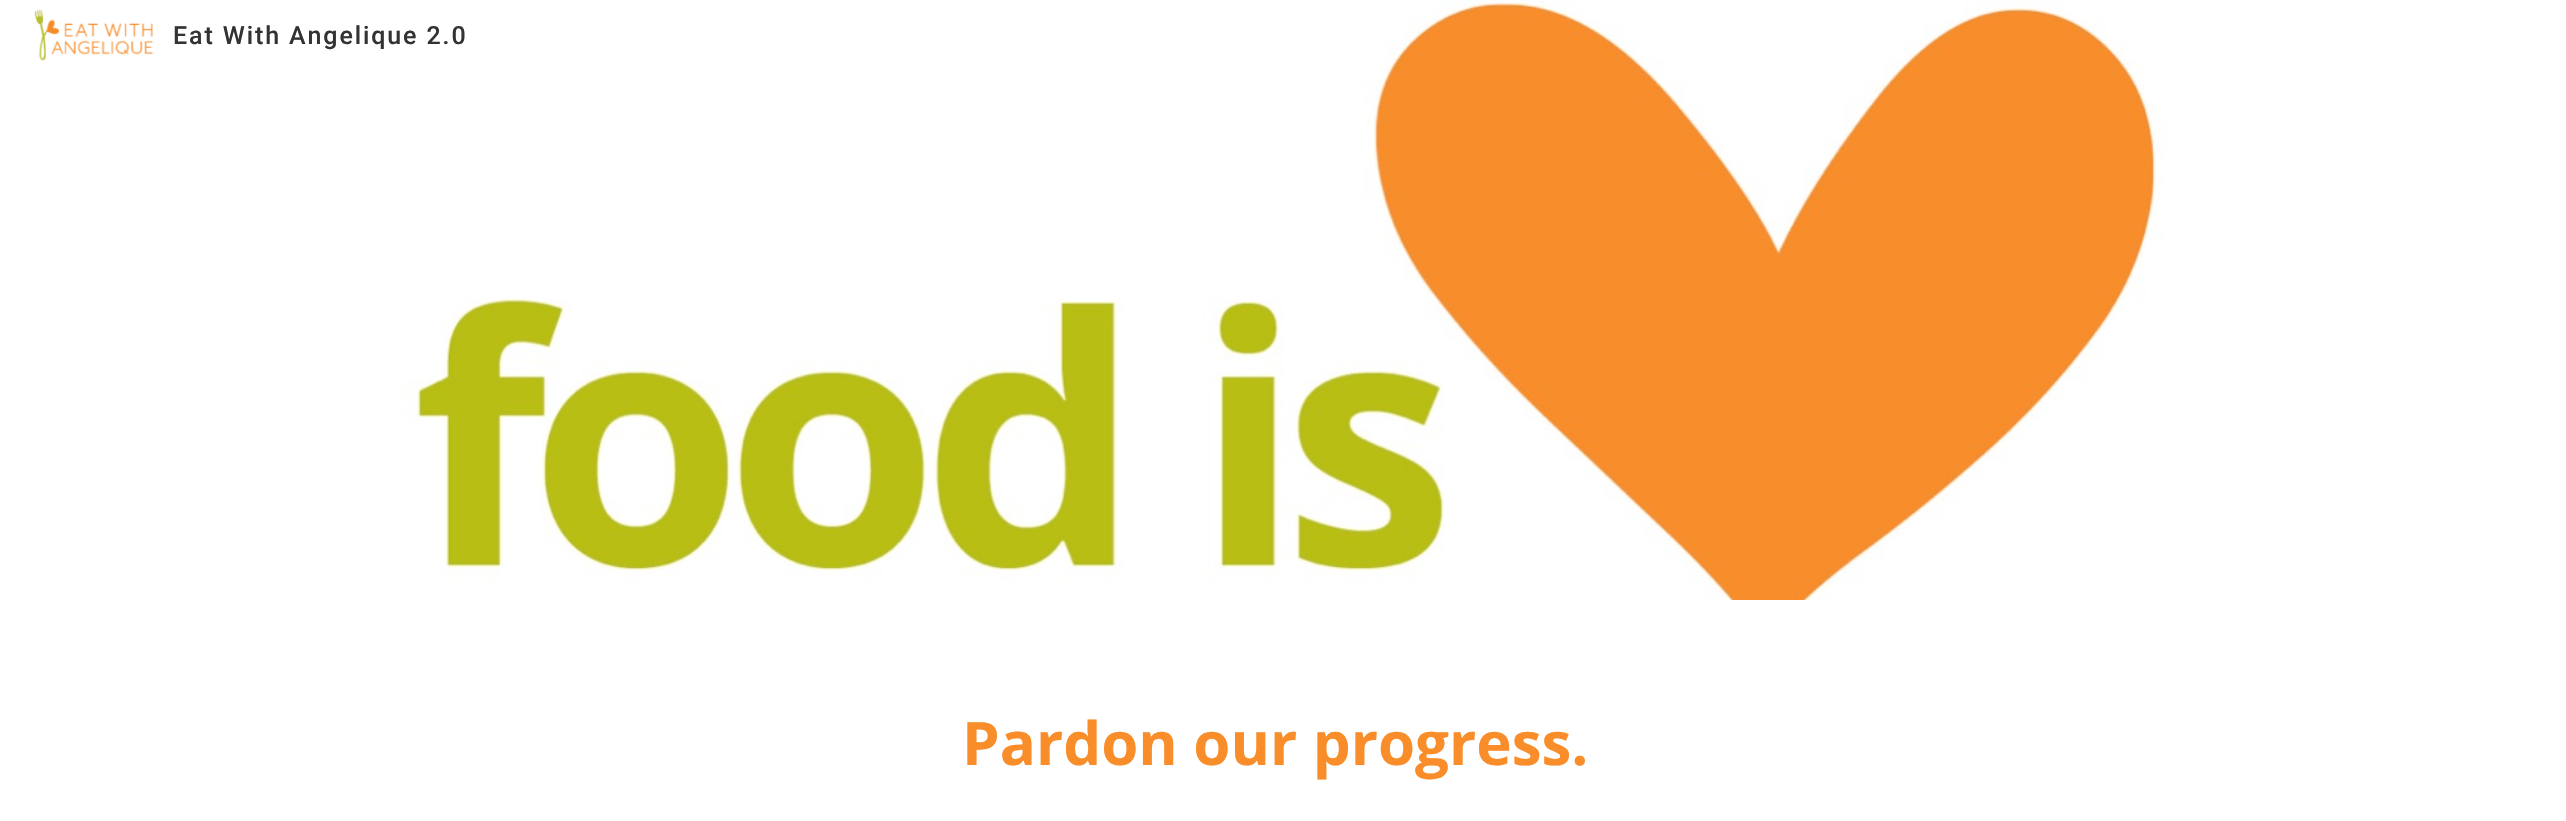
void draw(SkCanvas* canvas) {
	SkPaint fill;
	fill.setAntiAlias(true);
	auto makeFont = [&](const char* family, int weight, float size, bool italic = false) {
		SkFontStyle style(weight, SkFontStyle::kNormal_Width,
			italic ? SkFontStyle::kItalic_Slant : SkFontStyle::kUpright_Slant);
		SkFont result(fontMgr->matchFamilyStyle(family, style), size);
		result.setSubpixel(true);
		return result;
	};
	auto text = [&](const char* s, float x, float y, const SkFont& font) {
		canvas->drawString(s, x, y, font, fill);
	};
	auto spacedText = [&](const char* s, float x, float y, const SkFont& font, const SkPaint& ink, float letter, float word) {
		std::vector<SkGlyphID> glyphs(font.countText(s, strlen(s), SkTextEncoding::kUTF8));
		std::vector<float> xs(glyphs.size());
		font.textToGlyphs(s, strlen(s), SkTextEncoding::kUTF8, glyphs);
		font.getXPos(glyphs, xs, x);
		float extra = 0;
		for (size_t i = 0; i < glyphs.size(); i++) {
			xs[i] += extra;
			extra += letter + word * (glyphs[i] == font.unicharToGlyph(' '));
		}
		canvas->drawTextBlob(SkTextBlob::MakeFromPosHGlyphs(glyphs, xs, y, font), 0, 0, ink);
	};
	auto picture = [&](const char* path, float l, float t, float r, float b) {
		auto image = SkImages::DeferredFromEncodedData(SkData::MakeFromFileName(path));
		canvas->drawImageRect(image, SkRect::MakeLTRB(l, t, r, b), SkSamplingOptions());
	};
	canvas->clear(0xFFFFFFFF);
	picture("image0.png", 34, 9, 154, 61);
	picture("image1.png", 401, 0, 2165, 600);
	auto font1 = makeFont("Roboto", 500, 25);
	fill.setColor(0xFF333333);
	spacedText("Eat With Angelique 2.0", 173, 44, font1, fill, 1.9f, 0);
	auto font2 = makeFont("Open Sans", 700, 60);
	fill.setColor(0xFFF88D2A);
	text("Pardon our progress.", 962, 765, font2);
}
